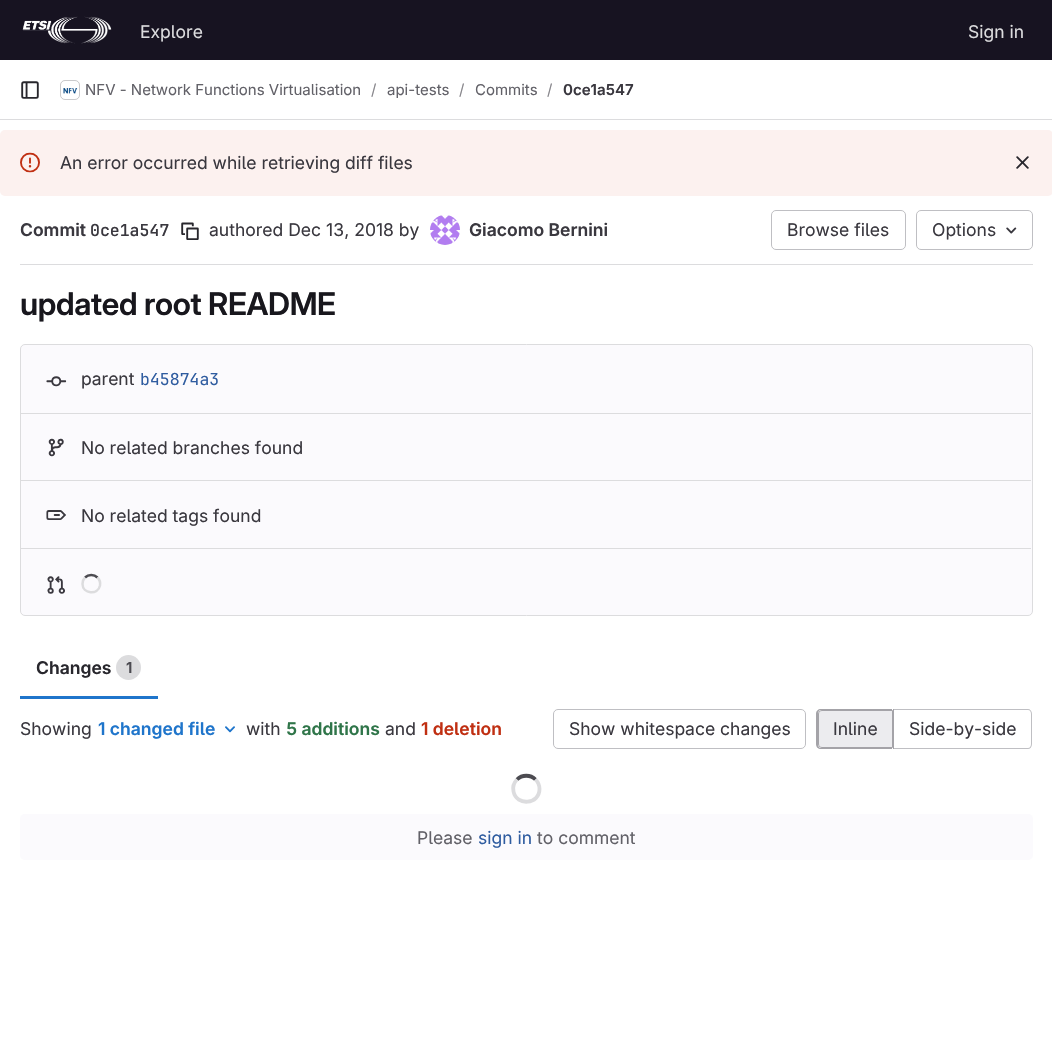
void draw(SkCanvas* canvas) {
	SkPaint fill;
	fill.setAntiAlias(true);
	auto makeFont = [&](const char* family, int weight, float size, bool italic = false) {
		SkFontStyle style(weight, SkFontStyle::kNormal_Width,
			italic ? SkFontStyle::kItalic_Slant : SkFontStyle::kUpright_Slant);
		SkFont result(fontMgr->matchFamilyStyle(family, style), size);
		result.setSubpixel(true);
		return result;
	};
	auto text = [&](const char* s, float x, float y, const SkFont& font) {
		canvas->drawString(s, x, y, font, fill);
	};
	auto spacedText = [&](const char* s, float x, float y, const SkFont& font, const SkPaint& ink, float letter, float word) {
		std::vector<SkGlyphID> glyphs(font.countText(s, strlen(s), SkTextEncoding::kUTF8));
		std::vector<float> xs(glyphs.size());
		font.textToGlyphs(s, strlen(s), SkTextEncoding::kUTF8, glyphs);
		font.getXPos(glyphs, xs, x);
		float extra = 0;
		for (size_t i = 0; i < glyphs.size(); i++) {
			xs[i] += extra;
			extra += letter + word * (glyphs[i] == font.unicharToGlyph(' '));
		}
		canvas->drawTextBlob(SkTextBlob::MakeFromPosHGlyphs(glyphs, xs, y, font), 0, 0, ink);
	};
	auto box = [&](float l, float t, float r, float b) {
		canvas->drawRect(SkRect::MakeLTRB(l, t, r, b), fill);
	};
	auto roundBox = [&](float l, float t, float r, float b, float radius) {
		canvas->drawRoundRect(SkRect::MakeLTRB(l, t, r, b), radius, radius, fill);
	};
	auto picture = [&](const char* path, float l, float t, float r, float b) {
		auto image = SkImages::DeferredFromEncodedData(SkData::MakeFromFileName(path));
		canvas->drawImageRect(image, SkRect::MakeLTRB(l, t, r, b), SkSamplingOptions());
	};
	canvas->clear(0xFFFFFFFF);
	fill.setColor(0xFF171321);
	box(0, 0, 1052, 60);
	picture("image0.png", 22, 16, 112, 44);
	fill.setColor(0xFFDCDCDE);
	box(0, 119, 1052, 120);
	picture("image1.png", 21, 81, 39, 99);
	fill.setStyle(SkPaint::kStroke_Style);
	fill.setStrokeWidth(1);
	canvas->drawRoundRect(SkRect::MakeLTRB(60.5f, 80.5f, 79.5f, 99.5f), 4.5f, 4.5f, fill);
	picture("image2.png", 61, 88, 79, 97);
	fill.setColor(0x14050506);
	canvas->drawRoundRect(SkRect::MakeLTRB(60.5f, 80.5f, 79.5f, 99.5f), 4.5f, 4.5f, fill);
	fill.setStyle(SkPaint::kFill_Style);
	fill.setColor(0xFFFCF1EF);
	roundBox(0, 130, 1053, 196, 5);
	picture("image3.png", 20, 152, 40, 173);
	picture("image4.png", 1016, 156, 1029, 169);
	picture("image5.png", 181, 222, 199, 240);
	fill.setStyle(SkPaint::kStroke_Style);
	fill.setColor(0xFFE8E7E9);
	canvas->drawCircle(445, 230, 14.5f, fill);
	picture("image6.png", 430, 215, 460, 245);
	fill.setColor(0xFFBFBFC3);
	canvas->drawRoundRect(SkRect::MakeLTRB(771.5f, 210.5f, 905.5f, 249.5f), 4.5f, 4.5f, fill);
	canvas->drawRoundRect(SkRect::MakeLTRB(916.5f, 210.5f, 1032.5f, 249.5f), 4.5f, 4.5f, fill);
	picture("image7.png", 1006, 227, 1017, 234);
	fill.setStyle(SkPaint::kFill_Style);
	fill.setColor(0xFFDCDCDE);
	box(20, 264, 1033, 265);
	fill.setColor(0xFFFBFAFD);
	canvas->drawRoundRect(SkRect::MakeLTRB(20.5f, 344.5f, 1032.5f, 615.5f), 4.5f, 4.5f, fill);
	fill.setStyle(SkPaint::kStroke_Style);
	fill.setColor(0xFFDCDCDE);
	canvas->drawRoundRect(SkRect::MakeLTRB(20.5f, 344.5f, 1032.5f, 615.5f), 4.5f, 4.5f, fill);
	picture("image8.png", 46, 376, 67, 387);
	fill.setStyle(SkPaint::kFill_Style);
	box(21, 413, 1031, 414);
	picture("image9.png", 48, 438, 64, 457);
	box(21, 480, 1031, 481);
	picture("image10.png", 46, 510, 66, 520);
	box(21, 548, 1031, 549);
	picture("image11.png", 47, 576, 65, 594);
	fill.setStyle(SkPaint::kStroke_Style);
	fill.setStrokeWidth(2.5f);
	fill.setColor(0xFF4C4B51);
	canvas->drawPath(SkPathBuilder().moveTo(85, 577.5f).cubicTo(88.5f, 574, 94, 574, 97.5f, 577.5f).detach(), fill);
	fill.setColor(0xFFDCDCDE);
	canvas->drawPath(SkPathBuilder().moveTo(97.5f, 577.5f).cubicTo(99.5f, 579.5f, 100.5f, 582.5f, 100, 585.5f).cubicTo(98, 595.5f, 82.5f, 594, 82.5f, 584).cubicTo(82.5f, 581.5f, 83.5f, 579, 85, 577.5f).detach(), fill);
	fill.setStyle(SkPaint::kFill_Style);
	canvas->drawCircle(128.5f, 667.5f, 12.5f, fill);
	fill.setColor(0xFF1F75CB);
	box(20, 696, 158, 699);
	picture("image12.png", 225, 726, 235, 733);
	fill.setStyle(SkPaint::kStroke_Style);
	fill.setStrokeWidth(1);
	fill.setColor(0xFFBFBFC3);
	canvas->drawRoundRect(SkRect::MakeLTRB(553.5f, 709.5f, 805.5f, 748.5f), 4.5f, 4.5f, fill);
	fill.setStyle(SkPaint::kFill_Style);
	fill.setColor(0xFFECECEF);
	canvas->drawPath(SkPathBuilder().moveTo(822, 710.5f).lineTo(892.5f, 710.5f).lineTo(892.5f, 747.5f).lineTo(822, 747.5f).cubicTo(820, 747.5f, 818.5f, 746, 818.5f, 744).lineTo(818.5f, 714).cubicTo(818.5f, 712, 820, 710.5f, 822, 710.5f).close().detach(), fill);
	fill.setStyle(SkPaint::kStroke_Style);
	fill.setColor(0xFFA4A3A8);
	canvas->drawPath(SkPathBuilder().moveTo(822, 710.5f).lineTo(892.5f, 710.5f).lineTo(892.5f, 747.5f).lineTo(822, 747.5f).cubicTo(820, 747.5f, 818.5f, 746, 818.5f, 744).lineTo(818.5f, 714).cubicTo(818.5f, 712, 820, 710.5f, 822, 710.5f).close().detach(), fill);
	fill.setStyle(SkPaint::kFill_Style);
	canvas->drawPath(SkPathBuilder(SkPathFillType::kEvenOdd).moveTo(821, 709).lineTo(892, 709).lineTo(892, 749).lineTo(821, 749).cubicTo(818, 749, 816, 747, 816, 744).lineTo(816, 714).cubicTo(816, 711, 818, 709, 821, 709).close().moveTo(821, 710).lineTo(892, 710).lineTo(892, 748).lineTo(821, 748).cubicTo(819, 748, 818, 746, 818, 744).lineTo(818, 714).cubicTo(818, 712, 819, 710, 821, 710).close().detach(), fill);
	fill.setColor(0xFFBFBFC3);
	canvas->drawPath(SkPathBuilder(SkPathFillType::kEvenOdd).moveTo(894, 709).lineTo(1028, 709).cubicTo(1030, 709, 1032, 711, 1032, 714).lineTo(1032, 744).cubicTo(1032, 747, 1030, 749, 1028, 749).lineTo(894, 749).close().moveTo(894, 710).lineTo(1028, 710).cubicTo(1030, 710, 1031, 712, 1031, 714).lineTo(1031, 744).cubicTo(1031, 746, 1030, 748, 1028, 748).lineTo(894, 748).close().detach(), fill);
	fill.setColor(0xFFA4A3A8);
	box(893, 709, 894, 749);
	fill.setStyle(SkPaint::kStroke_Style);
	fill.setStrokeWidth(3.8f);
	fill.setColor(0xFF4C4B51);
	canvas->drawPath(SkPathBuilder().moveTo(517, 779.5f).cubicTo(522, 774.5f, 530.5f, 774.5f, 535.5f, 779.5f).detach(), fill);
	fill.setColor(0xFFDCDCDE);
	canvas->drawPath(SkPathBuilder().moveTo(535.5f, 779.5f).cubicTo(538, 782, 539.5f, 785.5f, 539.5f, 789).cubicTo(539.5f, 804.5f, 516.5f, 806.5f, 513.5f, 791.5f).cubicTo(512.5f, 787, 514, 782.5f, 517, 779.5f).detach(), fill);
	fill.setStyle(SkPaint::kFill_Style);
	fill.setColor(0xFFFBFAFD);
	roundBox(20, 814, 1033, 860, 5);
	auto font1 = makeFont("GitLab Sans", 400, 17.5f);
	fill.setColor(0xFFDCDCDE);
	text("Explore", 140, 38, font1);
	text("Sign in", 968, 38, font1);
	auto font2 = makeFont("GitLab Sans", 400, 15);
	fill.setColor(0xFF626168);
	text("NFV - Network Functions Virtualisation", 85, 95, font2);
	fill.setColor(0xFF89888D);
	text("/", 371, 95, font2);
	fill.setColor(0xFF626168);
	text("api-tests", 387, 95, font2);
	fill.setColor(0xFF89888D);
	text("/", 459, 95, font2);
	fill.setColor(0xFF626168);
	text("Commits", 475, 95, font2);
	fill.setColor(0xFF89888D);
	text("/", 547, 95, font2);
	auto font3 = makeFont("GitLab Sans", 600, 15);
	fill.setColor(0xFF3A383F);
	text("0ce1a547", 563, 95, font3);
	text("An error occurred while retrieving diff files", 60, 169, font1);
	auto font4 = makeFont("GitLab Sans", 600, 17.5f);
	text("Commit", 20, 236, font4);
	auto font5 = makeFont("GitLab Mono", 600, 16.5f);
	text("0ce1a547", 90, 236, font5);
	text("authored Dec 13, 2018 by", 209, 236, font1);
	text("Giacomo Bernini", 469, 236, font4);
	text("Browse files", 787, 236, font1);
	text("Options", 932, 236, font1);
	auto font6 = makeFont("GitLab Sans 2", 600, 31.25f);
	fill.setColor(0xFF18171D);
	spacedText("updated root README", 20, 315, font6, fill, -0.3f, 0);
	fill.setColor(0xFF3A383F);
	text("parent", 81, 385, font1);
	auto font7 = makeFont("GitLab Mono", 400, 16.5f);
	fill.setColor(0xFF2F5CA0);
	text("b45874a3", 140, 385, font7);
	fill.setColor(0xFF3A383F);
	text("No related branches found", 81, 454, font1);
	text("No related tags found", 81, 522, font1);
	fill.setColor(0xFF28272D);
	text("Changes", 36, 674, font4);
	fill.setColor(0xFF4C4B51);
	text("1", 126, 673, font3);
	fill.setColor(0xFF3A383F);
	text("Showing", 20, 735, font1);
	fill.setColor(0xFF1F75CB);
	text("1 changed file", 98, 735, font4);
	fill.setColor(0xFF3A383F);
	text("with", 246, 735, font1);
	fill.setColor(0xFF2F7549);
	text("5 additions", 286, 735, font4);
	fill.setColor(0xFF3A383F);
	text("and", 385, 735, font1);
	fill.setColor(0xFFC02F12);
	text("1 deletion", 421, 735, font4);
	fill.setColor(0xFF3A383F);
	text("Show whitespace changes", 569, 735, font1);
	text("Inline", 833, 735, font1);
	text("Side-by-side", 909, 735, font1);
	fill.setColor(0xFF626168);
	text("Please", 417, 844, font1);
	fill.setColor(0xFF2F5CA0);
	text("sign in", 478, 844, font1);
	fill.setColor(0xFF626168);
	text("to comment", 537, 844, font1);
}
